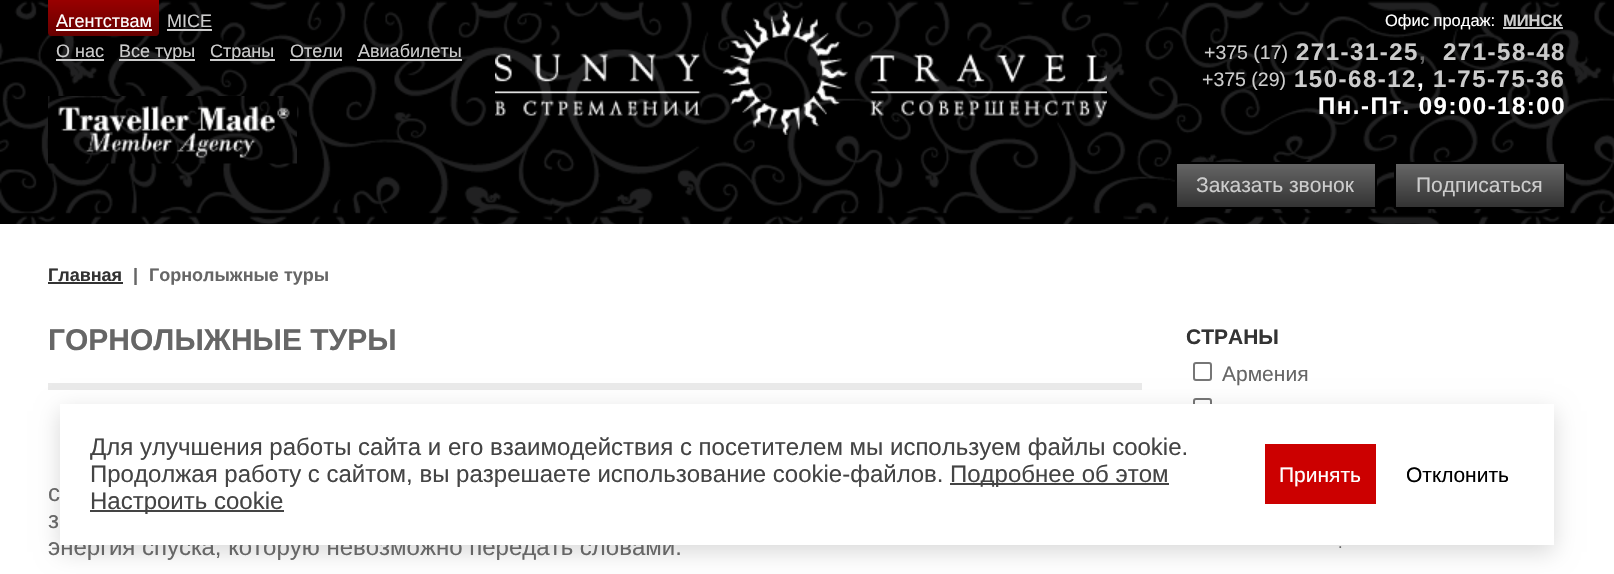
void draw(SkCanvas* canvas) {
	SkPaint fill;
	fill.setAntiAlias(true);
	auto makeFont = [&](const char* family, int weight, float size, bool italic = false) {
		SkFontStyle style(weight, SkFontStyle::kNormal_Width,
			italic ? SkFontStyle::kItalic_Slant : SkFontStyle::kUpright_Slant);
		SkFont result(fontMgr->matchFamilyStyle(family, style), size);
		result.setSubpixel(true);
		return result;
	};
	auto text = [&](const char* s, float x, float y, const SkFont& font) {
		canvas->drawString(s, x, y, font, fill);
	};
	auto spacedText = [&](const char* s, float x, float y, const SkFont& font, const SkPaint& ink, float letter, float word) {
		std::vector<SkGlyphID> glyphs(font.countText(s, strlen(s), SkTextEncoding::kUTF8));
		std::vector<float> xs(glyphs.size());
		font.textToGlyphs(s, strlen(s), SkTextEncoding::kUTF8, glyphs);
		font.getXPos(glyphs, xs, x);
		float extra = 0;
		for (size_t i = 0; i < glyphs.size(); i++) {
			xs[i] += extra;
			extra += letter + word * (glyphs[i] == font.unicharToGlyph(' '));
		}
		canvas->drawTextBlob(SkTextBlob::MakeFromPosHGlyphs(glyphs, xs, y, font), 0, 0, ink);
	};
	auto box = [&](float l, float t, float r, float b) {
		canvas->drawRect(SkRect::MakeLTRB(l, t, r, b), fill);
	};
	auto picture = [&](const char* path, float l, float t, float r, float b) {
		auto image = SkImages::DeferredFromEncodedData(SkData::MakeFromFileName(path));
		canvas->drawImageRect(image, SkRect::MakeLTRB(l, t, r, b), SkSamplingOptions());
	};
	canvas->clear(0xFF000000);
	picture("image0.png", 0, 1, 1614, 224);
	picture("image1.png", 495, 10, 1107, 135);
	{
		const SkColor colors[] = {0xFF990000, 0xFF660000};
		const float stops[] = {0, 1};
		const SkPoint ends[] = {{104, 0}, {104, 36}};
		fill.setShader(SkGradientShader::MakeLinear(ends, colors, stops, 2, SkTileMode::kClamp));
		fill.setAlpha(255);
	}
	canvas->drawPath(SkPathBuilder().moveTo(48, 0).lineTo(159, 0).lineTo(159, 33).cubicTo(159, 34.5f, 157.5f, 36, 156, 36).lineTo(51, 36).cubicTo(49.5f, 36, 48, 34.5f, 48, 33).close().detach(), fill);
	fill.setShader(nullptr);
	fill.setColor(0xFFFFFFFF);
	box(56, 29, 152, 31);
	fill.setColor(0xFFCCCCCC);
	box(167, 29, 212, 31);
	box(56, 59, 104, 61);
	box(119, 59, 195, 61);
	box(210, 59, 275, 61);
	box(290, 59, 342, 61);
	box(357, 59, 462, 61);
	picture("image2.png", 48, 96, 297, 164);
	box(1503, 27, 1563, 29);
	{
		const SkColor colors[] = {0xFF666666, 0xFF333333};
		const float stops[] = {0, 1};
		const SkPoint ends[] = {{1276, 163}, {1276, 207}};
		fill.setShader(SkGradientShader::MakeLinear(ends, colors, stops, 2, SkTileMode::kClamp));
		fill.setAlpha(255);
	}
	box(1177, 164, 1375, 207);
	fill.setStyle(SkPaint::kStroke_Style);
	fill.setStrokeWidth(2);
	fill.setShader(nullptr);
	fill.setColor(0xFF000000);
	canvas->drawRect(SkRect::MakeLTRB(1176, 163, 1376, 208), fill);
	fill.setStyle(SkPaint::kFill_Style);
	{
		const SkColor colors[] = {0xFF666666, 0xFF333333};
		const float stops[] = {0, 1};
		const SkPoint ends[] = {{1480, 164}, {1480, 207}};
		fill.setShader(SkGradientShader::MakeLinear(ends, colors, stops, 2, SkTileMode::kClamp));
		fill.setAlpha(255);
	}
	box(1396, 164, 1564, 207);
	fill.setStyle(SkPaint::kStroke_Style);
	fill.setShader(nullptr);
	fill.setColor(0xFF000000);
	canvas->drawRect(SkRect::MakeLTRB(1395, 163, 1565, 208), fill);
	fill.setStyle(SkPaint::kFill_Style);
	fill.setColor(0xFFFFFFFF);
	box(0, 224, 1614, 574);
	fill.setColor(0xFF333333);
	box(48, 282, 123, 284);
	fill.setColor(0xFFEAEAEA);
	box(48, 383, 1142, 390);
	fill.setStyle(SkPaint::kStroke_Style);
	fill.setColor(0xFF767676);
	canvas->drawRoundRect(SkRect::MakeLTRB(1194, 363, 1211, 380), 2, 2, fill);
	canvas->drawRoundRect(SkRect::MakeLTRB(1194, 399, 1211, 416), 2, 2, fill);
	fill.setStyle(SkPaint::kFill_Style);
	fill.setColor(0x26000000);
	fill.setMaskFilter(SkMaskFilter::MakeBlur(kNormal_SkBlurStyle, 11));
	canvas->drawRect(SkRect::MakeLTRB(60, 411, 1554, 552), fill);
	fill.setMaskFilter(nullptr);
	auto font1 = makeFont("Liberation Sans", 400, 18);
	fill.setColor(0xFFFFFFFF);
	text("Агентствам", 56, 27, font1);
	fill.setColor(0xFFCCCCCC);
	text("MICE", 167, 27, font1);
	text("О нас", 56, 57, font1);
	text("Все туры", 119, 57, font1);
	text("Страны", 210, 57, font1);
	text("Отели", 290, 57, font1);
	text("Авиабилеты", 358, 57, font1);
	auto font2 = makeFont("Liberation Sans", 400, 16.5f);
	fill.setColor(0xFFFFFFFF);
	text("Офис продаж:", 1385, 26, font2);
	auto font3 = makeFont("Liberation Sans", 700, 16.5f);
	fill.setColor(0xFFCCCCCC);
	text("МИНСК", 1503, 26, font3);
	auto font4 = makeFont("Liberation Sans", 400, 19.5f);
	text("+375 (17)", 1204, 59, font4);
	auto font5 = makeFont("Liberation Sans", 700, 24);
	spacedText("271-31-25", 1296, 60, font5, fill, 1.5f, 0);
	fill.setColor(0xFF666666);
	spacedText(",", 1419, 60, font5, fill, 1.5f, 0);
	fill.setColor(0xFFCCCCCC);
	spacedText("271-58-48", 1443, 60, font5, fill, 1.5f, 0);
	text("+375 (29)", 1202, 86, font4);
	spacedText("150-68-12", 1294, 87, font5, fill, 1.5f, 0);
	fill.setColor(0xFFFFFFFF);
	spacedText(",", 1417, 87, font5, fill, 1.5f, 0);
	fill.setColor(0xFFCCCCCC);
	spacedText("1-75-75-36", 1433, 87, font5, fill, 1.5f, 0);
	fill.setColor(0xFFFFFFFF);
	spacedText("Пн.-Пт. 09:00-18:00", 1318, 114, font5, fill, 1.5f, 0);
	auto font6 = makeFont("Liberation Sans", 400, 21);
	fill.setColor(0xFFCCCCCC);
	text("Заказать звонок", 1196, 192, font6);
	text("Подписаться", 1416, 192, font6);
	auto font7 = makeFont("Liberation Sans", 700, 18);
	fill.setColor(0xFF333333);
	text("Главная", 48, 281, font7);
	fill.setColor(0xFF666666);
	text("|", 133, 281, font7);
	text("Горнолыжные туры", 149, 281, font7);
	auto font8 = makeFont("Liberation Sans", 700, 30);
	text("ГОРНОЛЫЖНЫЕ ТУРЫ", 48, 350, font8);
	auto font9 = makeFont("Liberation Sans", 400, 24);
	text("с", 48, 501, font9);
	text("з", 48, 528, font9);
	text("энергия спуска, которую невозможно передать словами.", 48, 555, font9);
	auto font10 = makeFont("Liberation Sans", 700, 21);
	fill.setColor(0xFF333333);
	text("СТРАНЫ", 1186, 344, font10);
	fill.setColor(0xFF666666);
	text("Армения", 1222, 381, font6);
	text(".", 1338, 548, font2);
	fill.setColor(0xFFFFFFFF);
	box(60, 404, 1554, 545);
	fill.setColor(0xFF444444);
	text("Для улучшения работы сайта и его взаимодействия с посетителем мы используем файлы cookie.", 90, 455, font9);
	text("Продолжая работу с сайтом, вы разрешаете использование cookie-файлов.", 90, 482, font9);
	box(950, 483, 1169, 485);
	text("Подробнее об этом", 950, 482, font9);
	box(90, 510, 284, 512);
	text("Настроить сookie", 90, 509, font9);
	fill.setColor(0xFFCC0000);
	box(1265, 444, 1376, 504);
	fill.setColor(0xFFFFFFFF);
	text("Принять", 1279, 482, font6);
	fill.setColor(0xFF000000);
	text("Отклонить", 1406, 482, font6);
}
